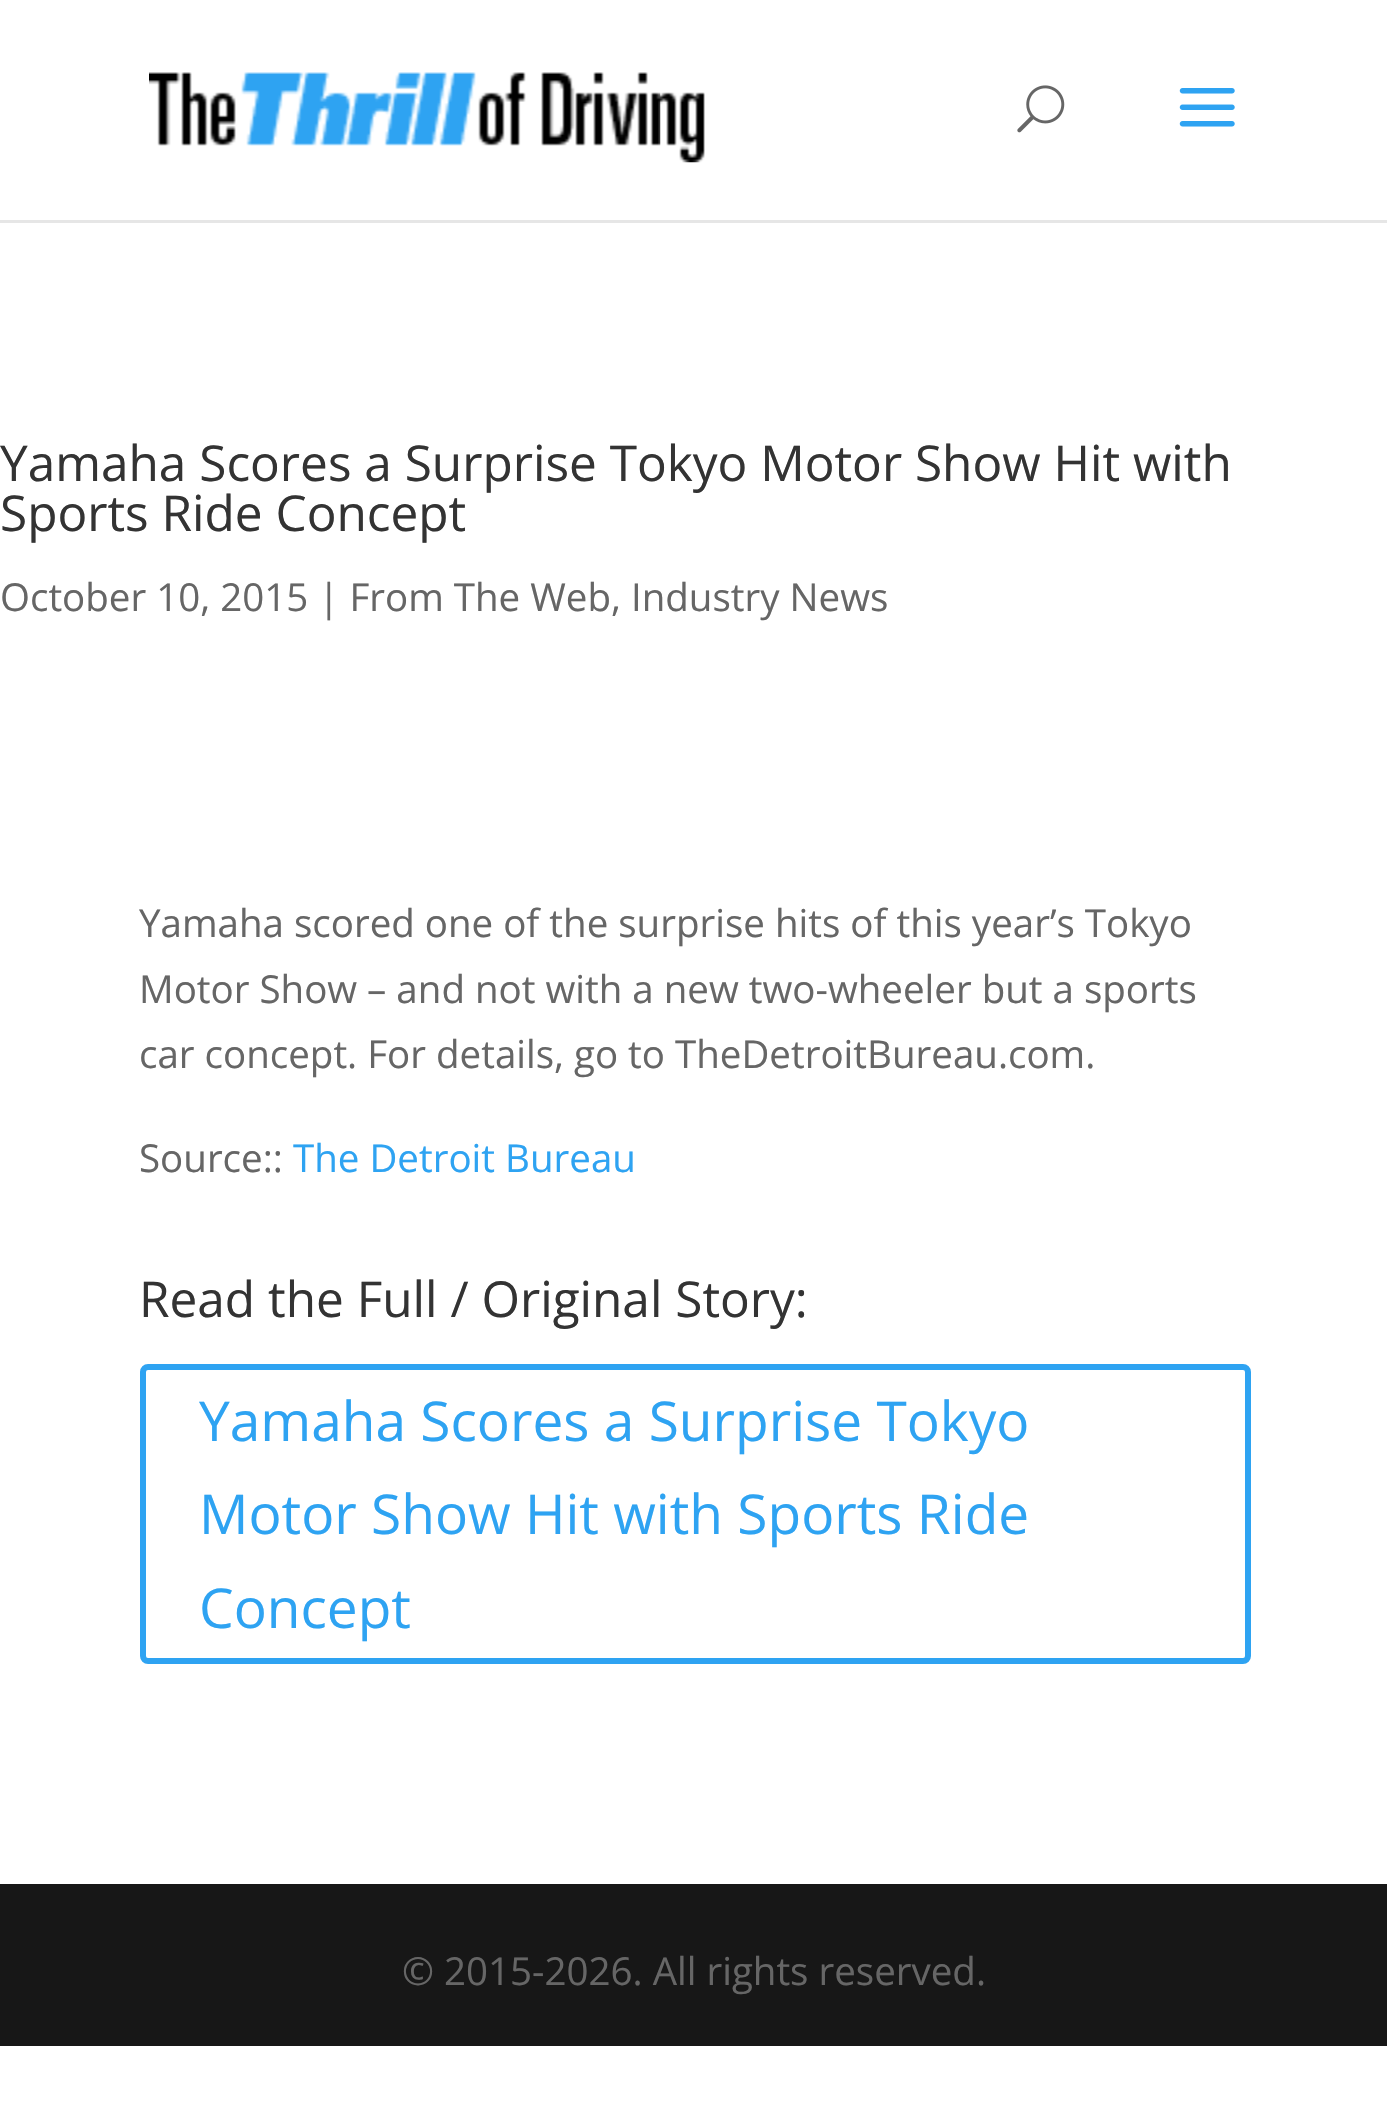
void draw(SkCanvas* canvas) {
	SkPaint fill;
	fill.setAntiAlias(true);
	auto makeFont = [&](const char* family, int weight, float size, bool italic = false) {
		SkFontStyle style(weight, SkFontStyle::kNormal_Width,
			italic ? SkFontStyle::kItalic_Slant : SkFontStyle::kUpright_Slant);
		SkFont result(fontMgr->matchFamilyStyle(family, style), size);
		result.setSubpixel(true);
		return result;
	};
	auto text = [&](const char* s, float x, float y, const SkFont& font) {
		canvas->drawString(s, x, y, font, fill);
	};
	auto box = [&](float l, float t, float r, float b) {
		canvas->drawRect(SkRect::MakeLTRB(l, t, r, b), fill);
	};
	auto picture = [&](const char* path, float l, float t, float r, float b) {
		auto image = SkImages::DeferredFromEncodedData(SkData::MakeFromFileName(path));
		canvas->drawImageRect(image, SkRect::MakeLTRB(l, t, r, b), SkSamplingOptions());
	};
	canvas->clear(0xFFFFFFFF);
	fill.setColor(0xFFE6E6E6);
	canvas->drawPath(SkPathBuilder().moveTo(0, 220).lineTo(0, 223).lineTo(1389, 223).lineTo(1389, 3).lineTo(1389, 220).close().detach(), fill);
	picture("image0.png", 149, 72, 705, 163);
	picture("image1.png", 1017, 85, 1065, 133);
	picture("image2.png", 1179, 88, 1235, 127);
	fill.setStyle(SkPaint::kStroke_Style);
	fill.setStrokeWidth(6);
	fill.setColor(0xFF2EA3F2);
	canvas->drawRoundRect(SkRect::MakeLTRB(143, 1367, 1248, 1661), 5, 5, fill);
	fill.setStyle(SkPaint::kFill_Style);
	fill.setColor(0xFF171717);
	box(0, 1884, 1387, 2046);
	auto font1 = makeFont("Open Sans", 400, 49.5f);
	fill.setColor(0xFF333333);
	text("Yamaha Scores a Surprise Tokyo Motor Show Hit with", 0, 481, font1);
	text("Sports Ride Concept", 0, 531, font1);
	auto font2 = makeFont("Open Sans", 400, 38.5f);
	fill.setColor(0xFF666666);
	text("October 10, 2015 | From The Web, Industry News", 0, 611, font2);
	text("Yamaha scored one of the surprise hits of this year’s Tokyo", 139, 937, font2);
	text("Motor Show – and not with a new two-wheeler but a sports", 139, 1003, font2);
	text("car concept. For details, go to TheDetroitBureau.com.", 139, 1068, font2);
	text("Source::", 139, 1172, font2);
	fill.setColor(0xFF2EA3F2);
	text("The Detroit Bureau", 293, 1172, font2);
	fill.setColor(0xFF333333);
	text("Read the Full / Original Story:", 139, 1317, font1);
	auto font3 = makeFont("Open Sans", 400, 55);
	fill.setColor(0xFF2EA3F2);
	text("Yamaha Scores a Surprise Tokyo", 199, 1441, font3);
	text("Motor Show Hit with Sports Ride", 199, 1534, font3);
	text("Concept", 199, 1628, font3);
	fill.setColor(0xFF666666);
	text("© 2015-2026. All rights reserved.", 402, 1985, font2);
}
